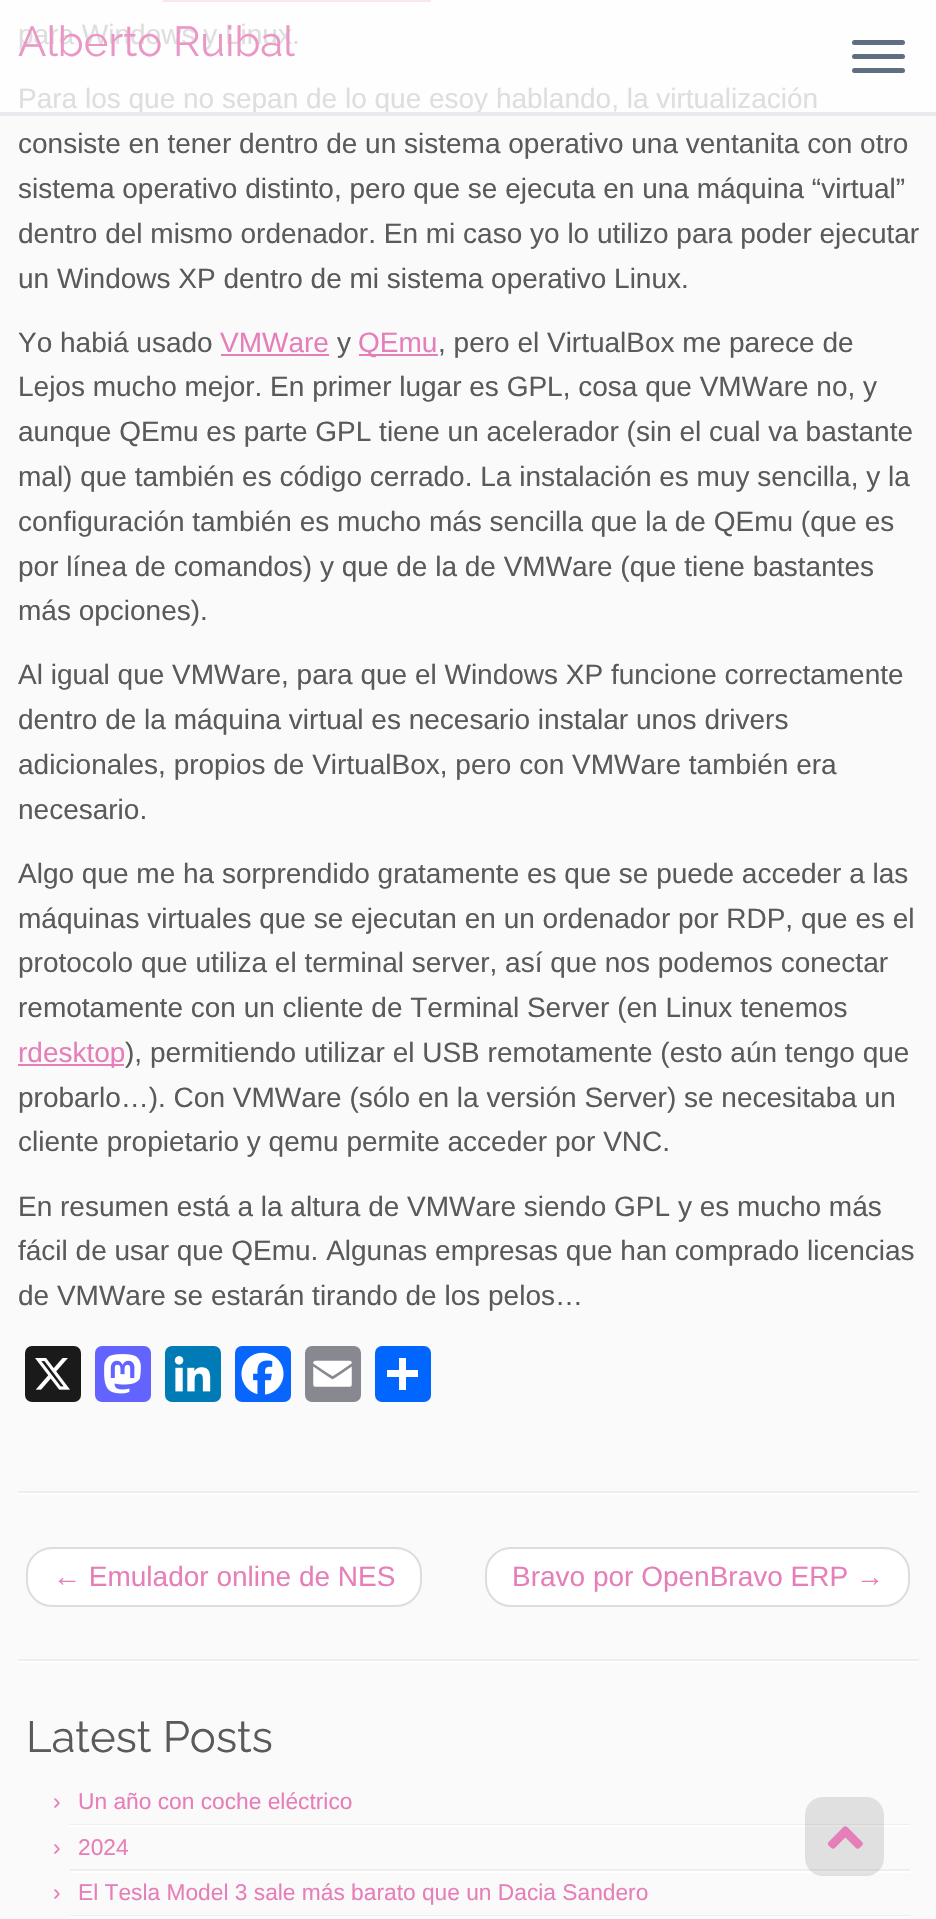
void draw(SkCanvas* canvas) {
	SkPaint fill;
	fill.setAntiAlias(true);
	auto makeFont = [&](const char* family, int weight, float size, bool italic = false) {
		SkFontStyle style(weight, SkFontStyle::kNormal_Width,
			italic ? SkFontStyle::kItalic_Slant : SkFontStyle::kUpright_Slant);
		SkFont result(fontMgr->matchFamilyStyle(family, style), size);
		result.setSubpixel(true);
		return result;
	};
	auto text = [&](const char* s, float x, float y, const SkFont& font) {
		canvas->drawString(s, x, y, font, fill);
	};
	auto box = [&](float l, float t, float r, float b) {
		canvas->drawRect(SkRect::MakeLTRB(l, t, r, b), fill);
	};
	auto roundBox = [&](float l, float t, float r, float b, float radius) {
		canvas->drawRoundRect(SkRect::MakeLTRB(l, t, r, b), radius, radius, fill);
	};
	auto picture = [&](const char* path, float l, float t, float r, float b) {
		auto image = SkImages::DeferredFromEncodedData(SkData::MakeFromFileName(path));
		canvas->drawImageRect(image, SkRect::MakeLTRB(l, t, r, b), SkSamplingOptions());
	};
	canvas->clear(0xFFFAFAFA);
	fill.setColor(0xFFFEFEFE);
	box(0, 0, 936, 112);
	fill.setColor(0xFFFAE5F1);
	box(163, 0, 431, 2);
	fill.setColor(0xFFE67FB9);
	box(221, 354, 329, 356);
	box(359, 354, 438, 356);
	box(18, 1064, 124, 1066);
	fill.setColor(0xFF1A1A1A);
	roundBox(25, 1346, 81, 1402, 7);
	picture("image0.png", 35, 1358, 70, 1390);
	fill.setColor(0xFF6364FF);
	roundBox(95, 1346, 151, 1402, 7);
	picture("image1.png", 104, 1354, 141, 1394);
	fill.setColor(0xFF007BB5);
	roundBox(165, 1346, 221, 1402, 7);
	picture("image2.png", 174, 1356, 211, 1392);
	fill.setColor(0xFF0866FF);
	roundBox(235, 1346, 291, 1402, 7);
	picture("image3.png", 241, 1352, 284, 1395);
	fill.setColor(0xFF888990);
	roundBox(305, 1346, 361, 1402, 7);
	picture("image4.png", 313, 1360, 352, 1387);
	fill.setColor(0xFF0166FF);
	roundBox(375, 1346, 431, 1402, 7);
	fill.setColor(0xFFFFFFFF);
	box(399, 1358, 406, 1390);
	box(387, 1370, 418, 1377);
	fill.setColor(0xFFEEEEEE);
	box(18, 1491, 919, 1493);
	fill.setColor(0xFFFFFFFF);
	box(18, 1493, 919, 1495);
	canvas->drawRoundRect(SkRect::MakeLTRB(27, 1548, 421, 1606), 25, 25, fill);
	fill.setStyle(SkPaint::kStroke_Style);
	fill.setStrokeWidth(2);
	fill.setColor(0xFFDDDDDD);
	canvas->drawRoundRect(SkRect::MakeLTRB(27, 1548, 421, 1606), 25, 25, fill);
	fill.setStyle(SkPaint::kFill_Style);
	fill.setColor(0xFFFFFFFF);
	canvas->drawRoundRect(SkRect::MakeLTRB(486, 1548, 909, 1606), 25, 25, fill);
	fill.setStyle(SkPaint::kStroke_Style);
	fill.setColor(0xFFDDDDDD);
	canvas->drawRoundRect(SkRect::MakeLTRB(486, 1548, 909, 1606), 25, 25, fill);
	fill.setStyle(SkPaint::kFill_Style);
	fill.setColor(0xFFEEEEEE);
	box(18, 1659, 919, 1661);
	fill.setColor(0xFFFFFFFF);
	box(18, 1661, 919, 1663);
	fill.setColor(0xFFEEEEEE);
	box(70, 1824, 910, 1825);
	fill.setColor(0xFFFFFFFF);
	box(70, 1825, 910, 1827);
	fill.setColor(0xFFEEEEEE);
	box(70, 1869, 910, 1871);
	fill.setColor(0xFFFFFFFF);
	box(70, 1871, 910, 1873);
	fill.setColor(0xFFEEEEEE);
	box(70, 1915, 910, 1916);
	fill.setColor(0xFFFFFFFF);
	box(70, 1916, 910, 1918);
	fill.setColor(0xFF5F6F81);
	roundBox(852, 40, 905, 45, 2.5f);
	roundBox(852, 54, 905, 59, 2.5f);
	roundBox(852, 68, 905, 73, 2.5f);
	fill.setColor(0x33777777);
	roundBox(805, 1797, 884, 1876, 18);
	picture("image5.png", 827, 1826, 863, 1849);
	auto font1 = makeFont("Liberation Sans", 400, 28);
	fill.setColor(0xFFDEDEDE);
	text("para Windows y Linux.", 18, 44, font1);
	text("Para los que no sepan de lo que esoy hablando, la virtualización", 18, 108, font1);
	fill.setColor(0xFF5A5A5A);
	text("consiste en tener dentro de un sistema operativo una ventanita con otro", 18, 153, font1);
	text("sistema operativo distinto, pero que se ejecuta en una máquina “virtual”", 18, 198, font1);
	text("dentro del mismo ordenador. En mi caso yo lo utilizo para poder ejecutar", 18, 243, font1);
	text("un Windows XP dentro de mi sistema operativo Linux.", 18, 288, font1);
	text("Yo habiá usado", 18, 352, font1);
	fill.setColor(0xFFE67FB9);
	text("VMWare", 220, 352, font1);
	fill.setColor(0xFF5A5A5A);
	text("y", 337, 352, font1);
	fill.setColor(0xFFE67FB9);
	text("QEmu", 358, 352, font1);
	fill.setColor(0xFF5A5A5A);
	text(", pero el VirtualBox me parece de", 438, 352, font1);
	text("Lejos mucho mejor. En primer lugar es GPL, cosa que VMWare no, y", 18, 396, font1);
	text("aunque QEmu es parte GPL tiene un acelerador (sin el cual va bastante", 18, 441, font1);
	text("mal) que también es código cerrado. La instalación es muy sencilla, y la", 18, 486, font1);
	text("configuración también es mucho más sencilla que la de QEmu (que es", 18, 531, font1);
	text("por línea de comandos) y que de la de VMWare (que tiene bastantes", 18, 576, font1);
	text("más opciones).", 18, 620, font1);
	text("Al igual que VMWare, para que el Windows XP funcione correctamente", 18, 684, font1);
	text("dentro de la máquina virtual es necesario instalar unos drivers", 18, 729, font1);
	text("adicionales, propios de VirtualBox, pero con VMWare también era", 18, 774, font1);
	text("necesario.", 18, 819, font1);
	text("Algo que me ha sorprendido gratamente es que se puede acceder a las", 18, 883, font1);
	text("máquinas virtuales que se ejecutan en un ordenador por RDP, que es el", 18, 928, font1);
	text("protocolo que utiliza el terminal server, así que nos podemos conectar", 18, 972, font1);
	text("remotamente con un cliente de Terminal Server (en Linux tenemos", 18, 1017, font1);
	fill.setColor(0xFFE67FB9);
	text("rdesktop", 18, 1062, font1);
	fill.setColor(0xFF5A5A5A);
	text("), permitiendo utilizar el USB remotamente (esto aún tengo que", 125, 1062, font1);
	text("probarlo…). Con VMWare (sólo en la versión Server) se necesitaba un", 18, 1107, font1);
	text("cliente propietario y qemu permite acceder por VNC.", 18, 1151, font1);
	text("En resumen está a la altura de VMWare siendo GPL y es mucho más", 18, 1216, font1);
	text("fácil de usar que QEmu. Algunas empresas que han comprado licencias", 18, 1260, font1);
	text("de VMWare se estarán tirando de los pelos…", 18, 1305, font1);
	fill.setColor(0xFFE67FB9);
	text("← Emulador online de NES", 53, 1586, font1);
	text("Bravo por OpenBravo ERP →", 512, 1586, font1);
	auto font2 = makeFont("Raleway", 100, 43.75f);
	fill.setColor(0xFF5A5A5A);
	text("Latest Posts", 26, 1752, font2);
	auto font3 = makeFont("Liberation Sans", 400, 22.75f);
	fill.setColor(0xFFE67FB9);
	text("›", 53, 1809, font3);
	text("Un año con coche eléctrico", 78, 1809, font3);
	text("›", 53, 1855, font3);
	text("2024", 78, 1855, font3);
	text("›", 53, 1900, font3);
	text("El Tesla Model 3 sale más barato que un Dacia Sandero", 78, 1900, font3);
	fill.setColor(0xFFE9EAEE);
	box(0, 112, 936, 116);
	auto font4 = makeFont("Raleway", 100, 42);
	fill.setColor(0xFFEA97C6);
	text("Alberto Ruibal", 18, 56, font4);
}
